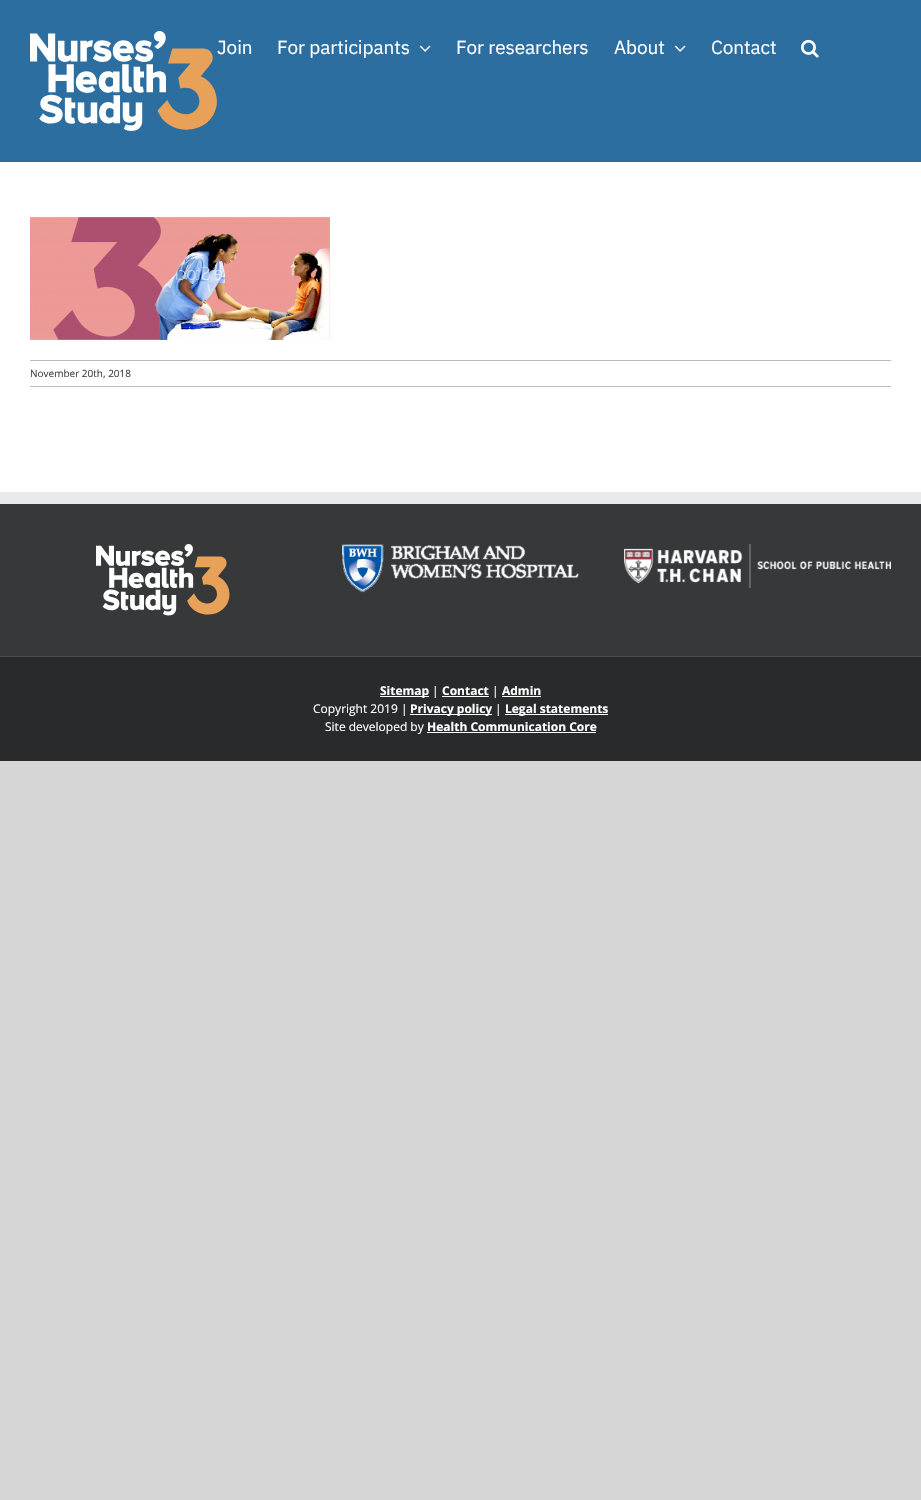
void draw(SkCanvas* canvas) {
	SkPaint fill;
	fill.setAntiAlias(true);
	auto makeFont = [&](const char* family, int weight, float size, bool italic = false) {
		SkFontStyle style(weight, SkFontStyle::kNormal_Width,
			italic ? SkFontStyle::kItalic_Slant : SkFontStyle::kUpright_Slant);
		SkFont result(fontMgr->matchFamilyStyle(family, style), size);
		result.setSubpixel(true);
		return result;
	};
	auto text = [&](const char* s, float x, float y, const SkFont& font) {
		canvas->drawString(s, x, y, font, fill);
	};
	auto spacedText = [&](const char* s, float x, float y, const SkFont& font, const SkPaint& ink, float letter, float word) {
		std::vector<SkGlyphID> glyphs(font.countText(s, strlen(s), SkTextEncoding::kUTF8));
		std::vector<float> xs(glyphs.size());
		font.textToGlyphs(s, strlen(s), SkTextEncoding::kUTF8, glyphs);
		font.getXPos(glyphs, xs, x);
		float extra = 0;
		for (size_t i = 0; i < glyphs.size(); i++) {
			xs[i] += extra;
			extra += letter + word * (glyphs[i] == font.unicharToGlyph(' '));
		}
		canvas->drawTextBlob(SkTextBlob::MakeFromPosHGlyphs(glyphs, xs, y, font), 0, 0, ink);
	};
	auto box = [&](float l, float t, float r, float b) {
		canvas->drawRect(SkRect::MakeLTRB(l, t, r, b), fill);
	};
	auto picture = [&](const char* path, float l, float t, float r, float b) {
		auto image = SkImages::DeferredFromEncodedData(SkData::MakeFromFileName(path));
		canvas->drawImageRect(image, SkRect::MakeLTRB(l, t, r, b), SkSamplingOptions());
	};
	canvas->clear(0xFFD7D6D6);
	fill.setColor(0xFFFFFFFF);
	box(0, 162, 921, 492);
	fill.setColor(0xFF2C6EA0);
	box(0, 0, 921, 162);
	picture("image0.png", 30, 31, 217, 131);
	picture("image1.png", 419, 45, 431, 52);
	picture("image1.png", 674, 45, 686, 52);
	picture("image2.png", 801, 39, 819, 58);
	picture("image3.png", 30, 217, 330, 340);
	fill.setColor(0xFFBCBABA);
	box(30, 360, 891, 361);
	box(30, 386, 891, 387);
	fill.setColor(0xFF363839);
	box(0, 504, 921, 656);
	fill.setColor(0xFFE9EAEE);
	box(0, 492, 921, 504);
	picture("image4.png", 96, 544, 230, 616);
	picture("image5.png", 342, 544, 579, 593);
	picture("image6.png", 624, 544, 891, 588);
	fill.setColor(0xFF282A2B);
	box(0, 657, 921, 761);
	fill.setColor(0xFF4B4C4D);
	box(0, 656, 921, 657);
	fill.setColor(0xFFFFFFFF);
	box(380, 696, 429, 697);
	box(442, 696, 489, 697);
	box(502, 696, 541, 697);
	box(410, 714, 492, 715);
	box(505, 714, 608, 715);
	box(427, 732, 596, 733);
	auto font1 = makeFont("IBM Plex Sans", 400, 19);
	spacedText("Join", 217, 54, font1, fill, -0.1f, 0);
	spacedText("For participants", 277, 54, font1, fill, -0.1f, 0);
	spacedText("For researchers", 456, 54, font1, fill, -0.1f, 0);
	spacedText("About", 614, 54, font1, fill, -0.1f, 0);
	spacedText("Contact", 711, 54, font1, fill, -0.1f, 0);
	auto font2 = makeFont("Open Sans", 400, 10);
	fill.setColor(0xFF404040);
	text("November 20th, 2018", 30, 377, font2);
	auto font3 = makeFont("Open Sans", 700, 12);
	fill.setColor(0xFFFFFFFF);
	text("Sitemap", 380, 695, font3);
	auto font4 = makeFont("Open Sans", 400, 12);
	text("|", 432, 695, font4);
	text("Contact", 442, 695, font3);
	text("|", 492, 695, font4);
	text("Admin", 502, 695, font3);
	text("Copyright 2019 |", 313, 713, font4);
	text("Privacy policy", 410, 713, font3);
	text("|", 495, 713, font4);
	text("Legal statements", 505, 713, font3);
	text("Site developed by", 325, 731, font4);
	text("Health Communication Core", 427, 731, font3);
}
